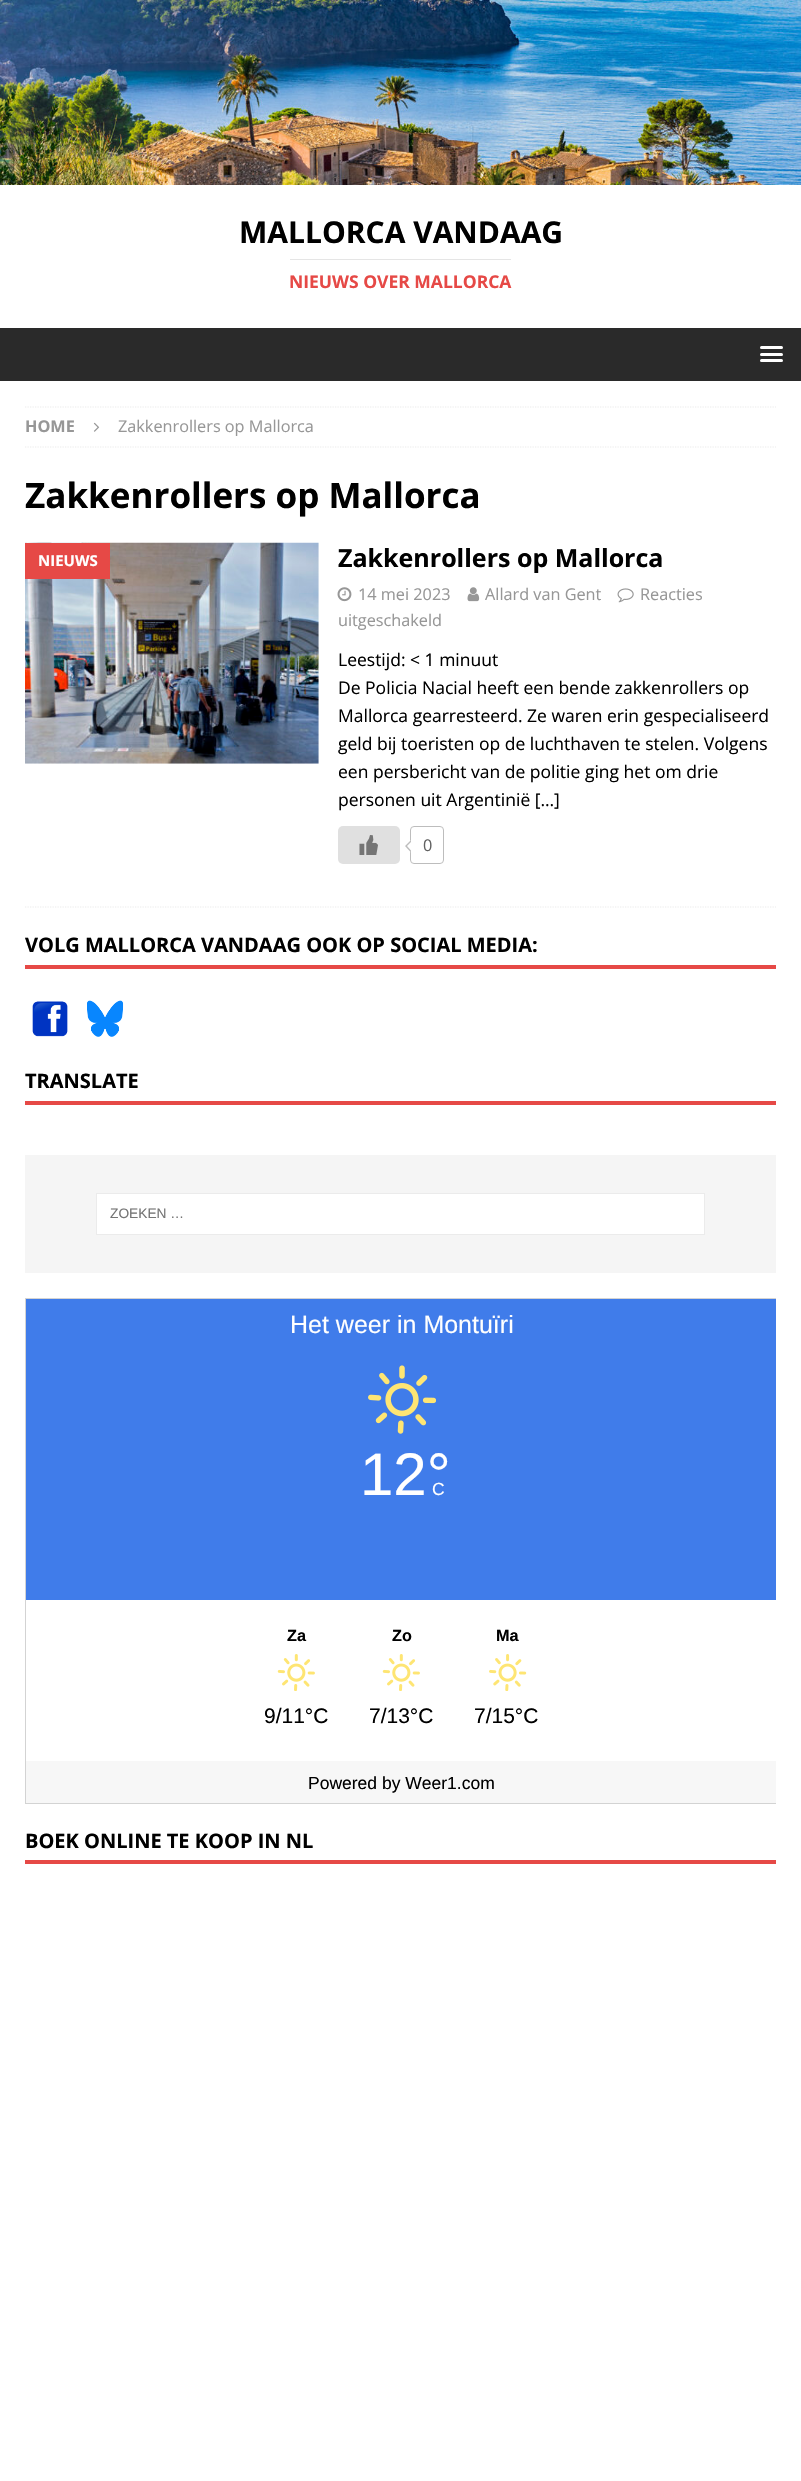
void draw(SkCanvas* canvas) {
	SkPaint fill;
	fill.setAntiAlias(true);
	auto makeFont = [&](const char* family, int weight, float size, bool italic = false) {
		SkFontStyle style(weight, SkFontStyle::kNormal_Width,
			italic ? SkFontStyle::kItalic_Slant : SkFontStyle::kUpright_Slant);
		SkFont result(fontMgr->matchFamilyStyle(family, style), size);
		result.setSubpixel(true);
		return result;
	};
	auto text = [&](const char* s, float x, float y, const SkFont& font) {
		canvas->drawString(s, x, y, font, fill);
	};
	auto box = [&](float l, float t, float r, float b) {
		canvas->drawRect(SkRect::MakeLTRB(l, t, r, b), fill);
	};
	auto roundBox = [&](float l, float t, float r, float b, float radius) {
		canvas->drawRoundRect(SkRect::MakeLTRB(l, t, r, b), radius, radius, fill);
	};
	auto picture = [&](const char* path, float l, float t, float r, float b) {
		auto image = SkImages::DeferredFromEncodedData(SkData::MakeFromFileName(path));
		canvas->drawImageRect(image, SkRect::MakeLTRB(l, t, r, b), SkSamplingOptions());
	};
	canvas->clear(0xFFFFFFFF);
	picture("image0.png", 0, 0, 801, 185);
	fill.setColor(0xFFE5E5E5);
	box(290, 259, 511, 260);
	fill.setColor(0xFF2A2A2A);
	box(0, 328, 801, 381);
	fill.setColor(0xFFFFFFFF);
	roundBox(760, 346, 783, 349, 1.5f);
	roundBox(760, 353, 783, 356, 1.5f);
	roundBox(760, 359, 783, 362, 1.5f);
	fill.setStyle(SkPaint::kStroke_Style);
	fill.setStrokeWidth(1.2f);
	fill.setColor(0xFFEBEBEB);
	fill.setPathEffect(SkDashPathEffect::Make({{1.25f, 1.25f}}, 0));
	canvas->drawPath(SkPathBuilder().moveTo(25, 407).lineTo(776, 407).detach(), fill);
	fill.setPathEffect(nullptr);
	fill.setPathEffect(SkDashPathEffect::Make({{1.25f, 1.25f}}, 0));
	canvas->drawPath(SkPathBuilder().moveTo(25, 447).lineTo(776, 447).detach(), fill);
	fill.setPathEffect(nullptr);
	picture("image1.png", 93, 422, 100, 432);
	fill.setPathEffect(SkDashPathEffect::Make({{1.25f, 1.25f}}, 0));
	canvas->drawPath(SkPathBuilder().moveTo(25, 907).lineTo(776, 907).detach(), fill);
	fill.setPathEffect(nullptr);
	picture("image2.png", 25, 542, 319, 764);
	fill.setStyle(SkPaint::kFill_Style);
	fill.setColor(0xFFE64946);
	box(25, 543, 110, 579);
	picture("image3.png", 467, 587, 480, 602);
	picture("image4.png", 617, 588, 634, 603);
	picture("image5.png", 337, 587, 352, 602);
	fill.setColor(0xFFE0E0E0);
	roundBox(338, 826, 400, 864, 5);
	picture("image6.png", 359, 835, 378, 855);
	fill.setStyle(SkPaint::kStroke_Style);
	fill.setStrokeWidth(1);
	fill.setColor(0xFFBDBDBD);
	canvas->drawRoundRect(SkRect::MakeLTRB(410.5f, 826.5f, 443.5f, 863.5f), 3.5f, 3.5f, fill);
	fill.setStyle(SkPaint::kFill_Style);
	fill.setColor(0xFFFFFFFF);
	canvas->drawPath(SkPathBuilder().moveTo(411, 840).lineTo(417.5f, 846).lineTo(411, 852.5f).lineTo(405, 846).close().detach(), fill);
	fill.setColor(0xFFBDBDBD);
	canvas->drawPath(SkPathBuilder().moveTo(411, 852.5f).lineTo(405, 846).lineTo(407, 846).lineTo(411, 850.5f).close().moveTo(405, 846).lineTo(411, 840).lineTo(411, 842).lineTo(407, 846).close().detach(), fill);
	fill.setColor(0xFFE64946);
	box(25, 965, 776, 969);
	picture("image7.png", 32, 1001, 68, 1037);
	picture("image8.png", 87, 1000, 124, 1037);
	box(25, 1101, 776, 1105);
	fill.setColor(0xFFF5F5F5);
	box(25, 1155, 776, 1273);
	fill.setColor(0xFFFFFFFF);
	canvas->drawRect(SkRect::MakeLTRB(96.5f, 1193.5f, 704.5f, 1234.5f), fill);
	fill.setStyle(SkPaint::kStroke_Style);
	fill.setColor(0xFFEBEBEB);
	canvas->drawRect(SkRect::MakeLTRB(96.5f, 1193.5f, 704.5f, 1234.5f), fill);
	canvas->save();
	canvas->clipRect(SkRect::MakeLTRB(25, 1298, 776, 1804));
	fill.setColor(0xFFD3D3D3);
	canvas->drawRect(SkRect::MakeLTRB(25.5f, 1298.5f, 778.5f, 1803.5f), fill);
	canvas->restore();
	fill.setStyle(SkPaint::kFill_Style);
	fill.setColor(0xFF407CEA);
	box(26, 1299, 776, 1600);
	picture("image9.png", 368, 1365, 436, 1434);
	picture("image10.png", 277, 1654, 315, 1691);
	picture("image10.png", 382, 1654, 420, 1691);
	picture("image11.png", 489, 1654, 527, 1691);
	fill.setColor(0xFFF7F7F7);
	box(26, 1761, 776, 1803);
	fill.setColor(0xFFE64946);
	box(25, 1860, 776, 1864);
	auto font1 = makeFont("Open Sans", 700, 30);
	fill.setColor(0xFF000000);
	text("MALLORCA VANDAAG", 239, 243, font1);
	auto font2 = makeFont("Open Sans", 700, 17.5f);
	fill.setColor(0xFFE64946);
	text("NIEUWS OVER MALLORCA", 289, 288, font2);
	auto font3 = makeFont("Open Sans", 700, 16.25f);
	fill.setColor(0xFF979797);
	text("HOME", 25, 432, font3);
	auto font4 = makeFont("Open Sans", 400, 16.25f);
	text("Zakkenrollers op Mallorca", 118, 432, font4);
	auto font5 = makeFont("Open Sans", 700, 35);
	fill.setColor(0xFF000000);
	text("Zakkenrollers op Mallorca", 25, 508, font5);
	auto font6 = makeFont("Open Sans", 700, 15);
	fill.setColor(0xFFFFFFFF);
	text("NIEUWS", 38, 566, font6);
	auto font7 = makeFont("Open Sans", 700, 25);
	fill.setColor(0xFF000000);
	text("Zakkenrollers op Mallorca", 338, 567, font7);
	fill.setColor(0xFF979797);
	text("Allard van Gent", 485, 600, font4);
	text("Reacties", 640, 600, font4);
	text("uitgeschakeld", 338, 626, font4);
	text("14 mei 2023", 358, 600, font4);
	auto font8 = makeFont("Open Sans", 400, 17.5f);
	fill.setColor(0xFF000000);
	text("Leestijd: < 1 minuut", 338, 666, font8);
	text("De Policia Nacial heeft een bende zakkenrollers op", 338, 694, font8);
	text("Mallorca gearresteerd. Ze waren erin gespecialiseerd", 338, 722, font8);
	text("geld bij toeristen op de luchthaven te stelen. Volgens", 338, 750, font8);
	text("een persbericht van de politie ging het om drie", 338, 778, font8);
	text("personen uit Argentinië […]", 338, 806, font8);
	fill.setColor(0xFF616161);
	text("0", 423, 851, font4);
	auto font9 = makeFont("Open Sans", 700, 20);
	fill.setColor(0xFF000000);
	text("VOLG MALLORCA VANDAAG OOK OP SOCIAL MEDIA:", 25, 952, font9);
	text("TRANSLATE", 25, 1088, font9);
	auto font10 = makeFont("Liberation Sans", 400, 13.75f);
	fill.setColor(0xFF757575);
	text("ZOEKEN …", 110, 1218, font10);
	auto font11 = makeFont("Liberation Sans", 400, 25);
	fill.setColor(0xFFFFFFFF);
	text("Het weer in Montuïri", 290, 1333, font11);
	auto font12 = makeFont("Liberation Sans", 400, 60);
	text("12°", 360, 1495, font12);
	auto font13 = makeFont("Liberation Sans", 400, 17.5f);
	text("C", 432, 1495, font13);
	auto font14 = makeFont("Liberation Sans", 700, 16.25f);
	fill.setColor(0xFF000000);
	text("Za", 287, 1641, font14);
	auto font15 = makeFont("Liberation Sans", 400, 21);
	text("9/11°C", 264, 1723, font15);
	text("Zo", 392, 1641, font14);
	text("7/13°C", 369, 1723, font15);
	text("Ma", 496, 1641, font14);
	text("7/15°C", 474, 1723, font15);
	text("Powered by Weer1.com", 308, 1789, font13);
	text("BOEK ONLINE TE KOOP IN NL", 25, 1848, font9);
}
